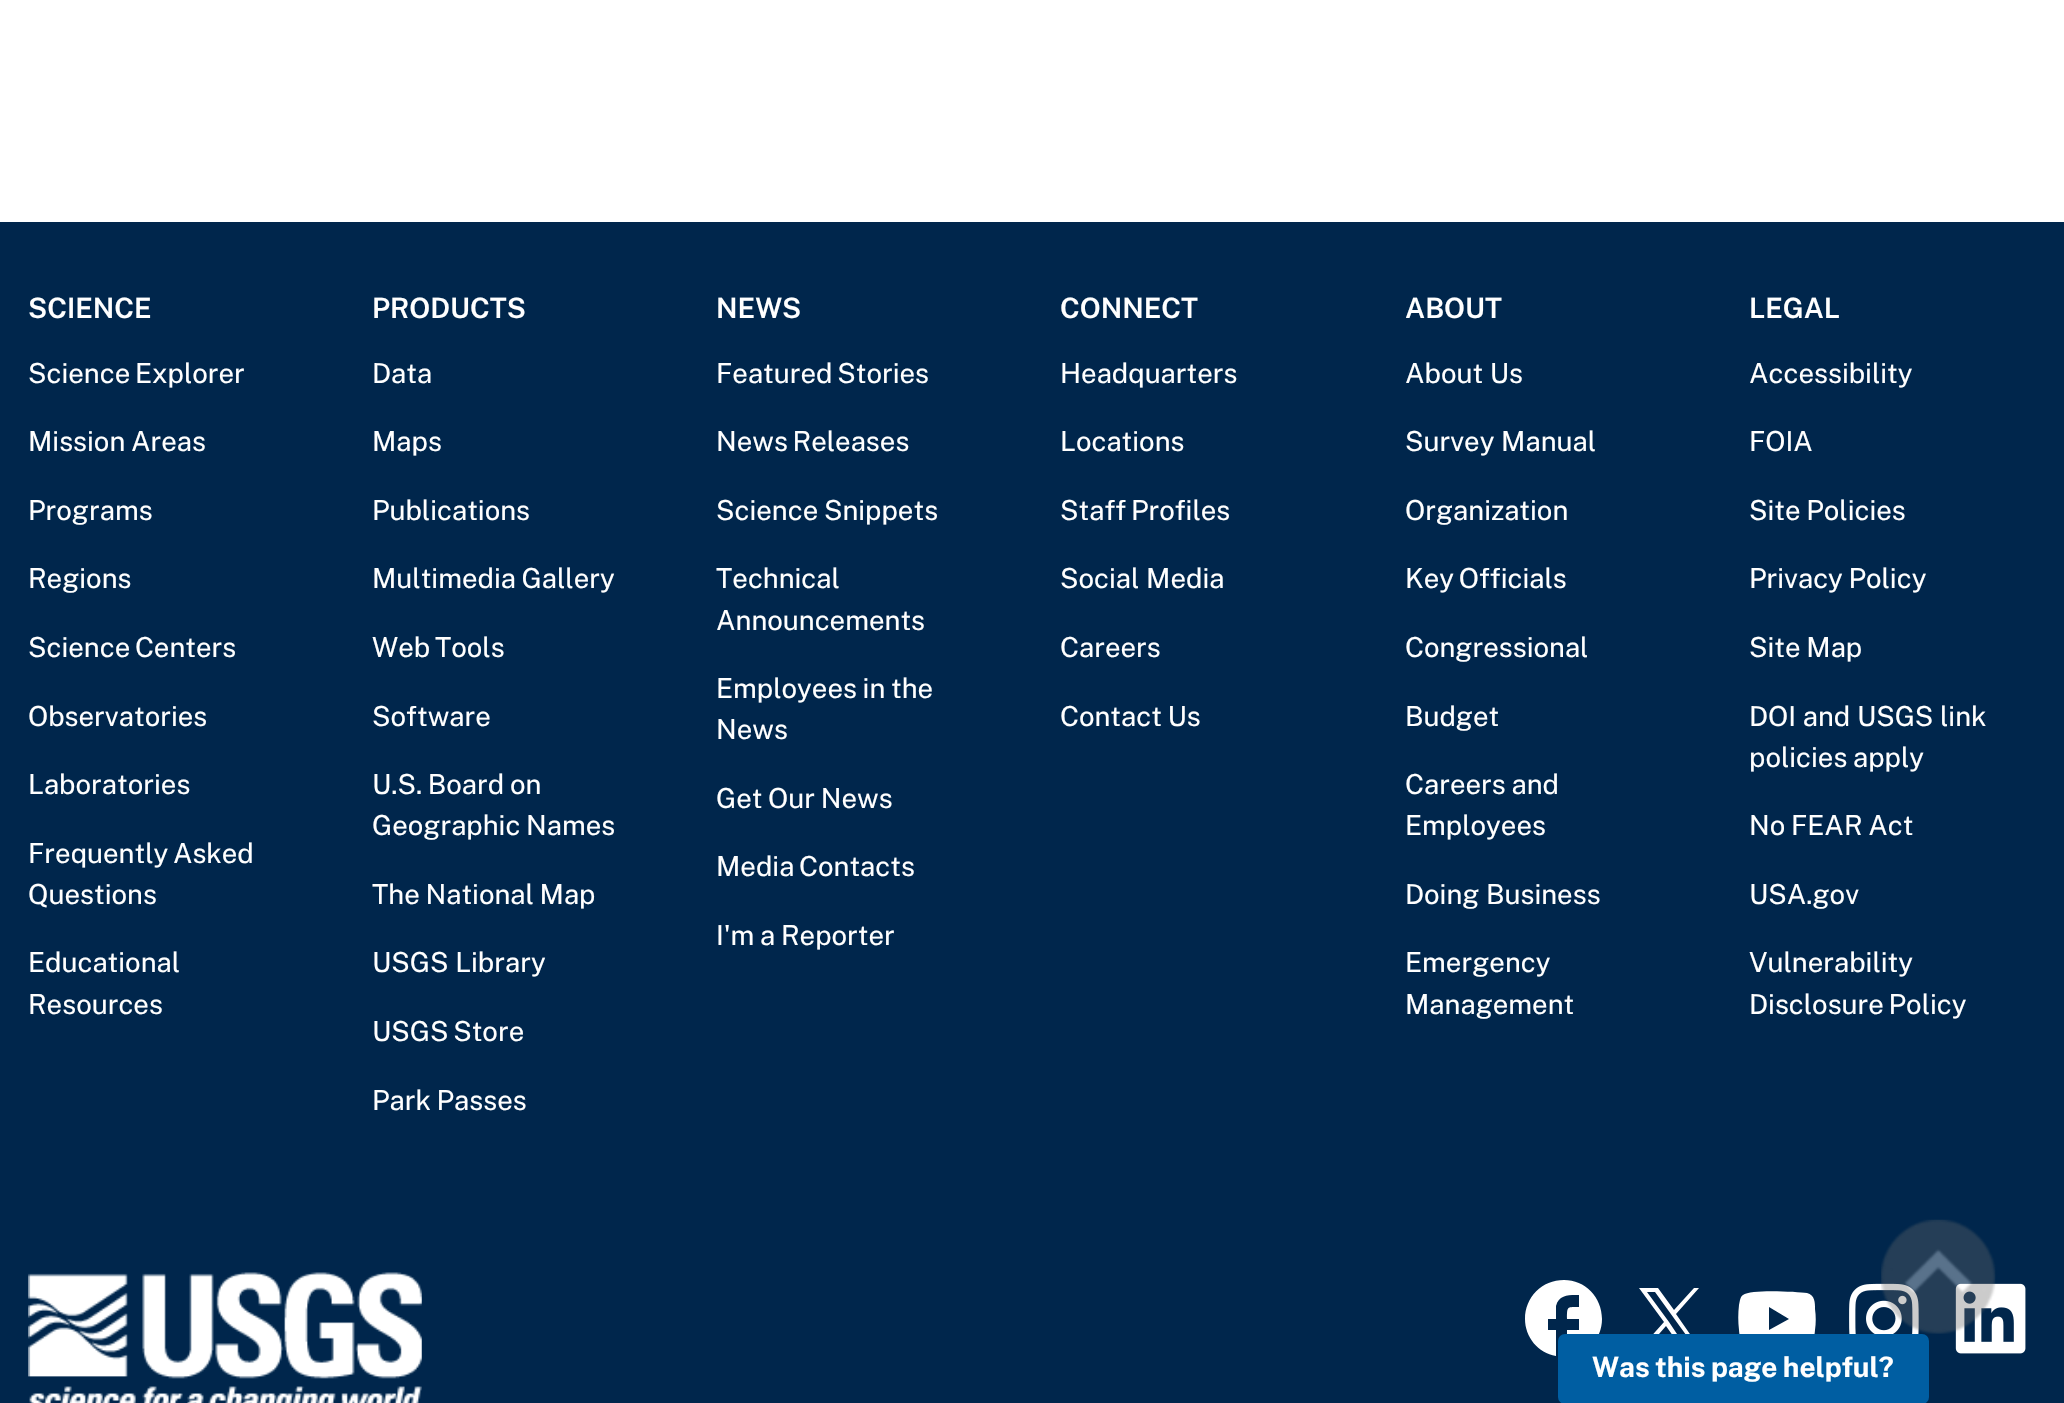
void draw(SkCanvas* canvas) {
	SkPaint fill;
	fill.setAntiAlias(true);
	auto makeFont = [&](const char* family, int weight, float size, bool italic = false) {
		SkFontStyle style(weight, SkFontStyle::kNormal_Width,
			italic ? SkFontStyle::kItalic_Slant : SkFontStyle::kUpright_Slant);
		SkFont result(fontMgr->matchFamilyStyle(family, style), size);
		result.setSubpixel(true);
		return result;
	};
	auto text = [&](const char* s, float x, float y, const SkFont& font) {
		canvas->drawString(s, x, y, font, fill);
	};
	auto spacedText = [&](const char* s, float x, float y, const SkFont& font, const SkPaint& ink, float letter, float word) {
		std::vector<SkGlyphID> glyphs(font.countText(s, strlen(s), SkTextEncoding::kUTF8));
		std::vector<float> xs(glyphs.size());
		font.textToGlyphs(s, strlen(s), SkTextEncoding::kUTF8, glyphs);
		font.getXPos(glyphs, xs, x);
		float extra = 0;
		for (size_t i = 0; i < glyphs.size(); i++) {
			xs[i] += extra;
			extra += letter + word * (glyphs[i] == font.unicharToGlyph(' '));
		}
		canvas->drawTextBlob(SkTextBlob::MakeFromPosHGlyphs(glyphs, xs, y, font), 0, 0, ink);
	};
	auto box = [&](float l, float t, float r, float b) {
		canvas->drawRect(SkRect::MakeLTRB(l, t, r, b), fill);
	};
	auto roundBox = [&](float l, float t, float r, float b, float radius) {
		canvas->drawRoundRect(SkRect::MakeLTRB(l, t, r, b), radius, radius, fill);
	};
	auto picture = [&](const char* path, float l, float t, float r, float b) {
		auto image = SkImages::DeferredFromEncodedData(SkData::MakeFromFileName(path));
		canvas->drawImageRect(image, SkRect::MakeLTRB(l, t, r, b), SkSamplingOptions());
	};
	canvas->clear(0xFFFFFFFF);
	fill.setColor(0xFF00264C);
	box(0, 222, 2064, 1403);
	picture("image2.png", 1849, 1283, 1919, 1334);
	picture("image3.png", 1955, 1283, 2026, 1354);
	picture("image0.png", 1881, 1219, 1996, 1334);
	picture("image1.png", 28, 1272, 422, 1403);
	fill.setColor(0xFFFFFFFF);
	canvas->drawPath(SkPathBuilder().moveTo(1602, 1319).cubicTo(1602, 1297, 1585, 1280, 1564, 1280).cubicTo(1542, 1280, 1525, 1297, 1525, 1319).cubicTo(1525, 1337, 1538, 1353, 1556, 1356).lineTo(1556, 1330).lineTo(1548, 1330).lineTo(1548, 1319).lineTo(1556, 1319).lineTo(1556, 1306).cubicTo(1559, 1294, 1570, 1295, 1579, 1295).lineTo(1579, 1307).cubicTo(1567, 1307, 1567, 1306, 1567, 1319).lineTo(1579, 1319).lineTo(1579, 1330).lineTo(1567, 1330).lineTo(1567, 1357).cubicTo(1587, 1355, 1602, 1339, 1602, 1319).close().detach(), fill);
	canvas->drawPath(SkPathBuilder().moveTo(1676, 1314).lineTo(1699, 1288).lineTo(1694, 1288).lineTo(1674, 1310).lineTo(1658, 1288).lineTo(1639, 1288).lineTo(1664, 1322).lineTo(1639, 1350).lineTo(1645, 1350).lineTo(1666, 1326).lineTo(1683, 1350).lineTo(1701, 1350).close().moveTo(1669, 1322).lineTo(1647, 1292).lineTo(1655, 1292).lineTo(1694, 1346).lineTo(1685, 1346).close().detach(), fill);
	canvas->drawPath(SkPathBuilder().moveTo(1807, 1293).cubicTo(1815, 1295, 1815, 1303, 1815, 1309).cubicTo(1816, 1316, 1816, 1323, 1815, 1330).cubicTo(1814, 1342, 1812, 1344, 1800, 1345).lineTo(1777, 1346).lineTo(1754, 1345).cubicTo(1742, 1344, 1740, 1342, 1739, 1330).cubicTo(1738, 1322, 1738, 1313, 1739, 1305).cubicTo(1740, 1301, 1740, 1297, 1743, 1295).cubicTo(1751, 1289, 1797, 1292, 1807, 1293).close().moveTo(1769, 1307).lineTo(1769, 1330).lineTo(1789, 1319).close().detach(), fill);
	fill.setColor(0xFF005EA2);
	roundBox(1558, 1334, 1929, 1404, 7);
	auto font1 = makeFont("Public Sans", 600, 28);
	fill.setColor(0xFFFFFFFF);
	text("SCIENCE", 28, 318, font1);
	auto font2 = makeFont("Public Sans", 400, 27.5f);
	spacedText("Science Explorer", 28, 383, font2, fill, 0, -2);
	spacedText("Mission Areas", 28, 451, font2, fill, 0, -1);
	text("Programs", 28, 520, font2);
	text("Regions", 28, 588, font2);
	spacedText("Science Centers", 28, 657, font2, fill, 0, -2);
	text("Observatories", 28, 726, font2);
	text("Laboratories", 28, 794, font2);
	spacedText("Frequently Asked", 28, 863, font2, fill, 0, -2);
	text("Questions", 28, 904, font2);
	text("Educational", 28, 972, font2);
	text("Resources", 28, 1014, font2);
	text("PRODUCTS", 372, 318, font1);
	text("Data", 372, 383, font2);
	text("Maps", 372, 451, font2);
	text("Publications", 372, 520, font2);
	spacedText("Multimedia Gallery", 372, 588, font2, fill, 0, -1);
	spacedText("Web Tools", 372, 657, font2, fill, 0, -2);
	text("Software", 372, 726, font2);
	spacedText("U.S. Board on", 372, 794, font2, fill, 0, -1);
	spacedText("Geographic Names", 372, 835, font2, fill, 0, -1);
	spacedText("The National Map", 372, 904, font2, fill, 0, -1);
	text("USGS Library", 372, 972, font2);
	spacedText("USGS Store", 372, 1041, font2, fill, 0, -2);
	spacedText("Park Passes", 372, 1110, font2, fill, 0, -1);
	text("NEWS", 716, 318, font1);
	spacedText("Featured Stories", 716, 383, font2, fill, 0, -2);
	spacedText("News Releases", 716, 451, font2, fill, 0, -2);
	spacedText("Science Snippets", 716, 520, font2, fill, 0, -1);
	text("Technical", 716, 588, font2);
	text("Announcements", 716, 630, font2);
	spacedText("Employees in the", 716, 698, font2, fill, 0, -1);
	text("News", 716, 739, font2);
	spacedText("Get Our News", 716, 808, font2, fill, 0, -1);
	spacedText("Media Contacts", 716, 876, font2, fill, 0, -2);
	spacedText("I'm a Reporter", 716, 945, font2, fill, 0, -1);
	text("CONNECT", 1060, 318, font1);
	text("Headquarters", 1060, 383, font2);
	text("Locations", 1060, 451, font2);
	spacedText("Staff Profiles", 1060, 520, font2, fill, 0, -2);
	text("Social Media", 1060, 588, font2);
	text("Careers", 1060, 657, font2);
	spacedText("Contact Us", 1060, 726, font2, fill, 0, -1);
	text("ABOUT", 1405, 318, font1);
	text("About Us", 1405, 383, font2);
	text("Survey Manual", 1405, 451, font2);
	text("Organization", 1405, 520, font2);
	spacedText("Key Officials", 1405, 588, font2, fill, 0, -2);
	text("Congressional", 1405, 657, font2);
	text("Budget", 1405, 726, font2);
	spacedText("Careers and", 1405, 794, font2, fill, 0, -1);
	text("Employees", 1405, 835, font2);
	text("Doing Business", 1405, 904, font2);
	text("Emergency", 1405, 972, font2);
	text("Management", 1405, 1014, font2);
	text("LEGAL", 1749, 318, font1);
	text("Accessibility", 1749, 383, font2);
	text("FOIA", 1749, 451, font2);
	spacedText("Site Policies", 1749, 520, font2, fill, 0, -1);
	spacedText("Privacy Policy", 1749, 588, font2, fill, 0, -1);
	spacedText("Site Map", 1749, 657, font2, fill, 0, -1);
	text("DOI and USGS link", 1749, 726, font2);
	spacedText("policies apply", 1749, 767, font2, fill, 0, -1);
	spacedText("No FEAR Act", 1749, 835, font2, fill, 0, -1);
	text("USA.gov", 1749, 904, font2);
	text("Vulnerability", 1749, 972, font2);
	spacedText("Disclosure Policy", 1749, 1014, font2, fill, 0, -2);
	auto font3 = makeFont("Public Sans", 700, 28);
	spacedText("Was this page helpful?", 1592, 1377, font3, fill, 0, -1);
}
